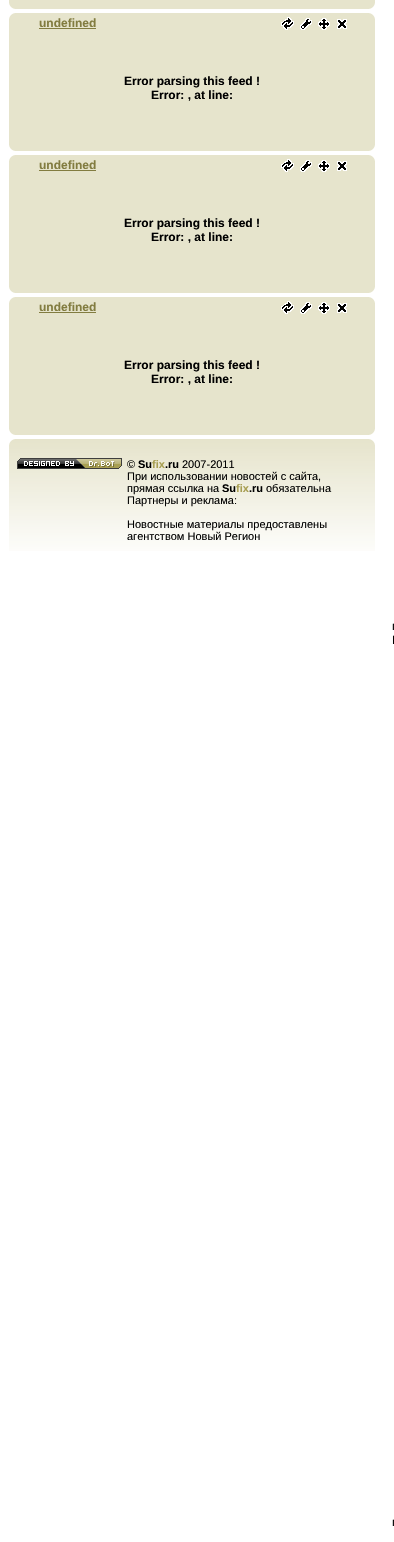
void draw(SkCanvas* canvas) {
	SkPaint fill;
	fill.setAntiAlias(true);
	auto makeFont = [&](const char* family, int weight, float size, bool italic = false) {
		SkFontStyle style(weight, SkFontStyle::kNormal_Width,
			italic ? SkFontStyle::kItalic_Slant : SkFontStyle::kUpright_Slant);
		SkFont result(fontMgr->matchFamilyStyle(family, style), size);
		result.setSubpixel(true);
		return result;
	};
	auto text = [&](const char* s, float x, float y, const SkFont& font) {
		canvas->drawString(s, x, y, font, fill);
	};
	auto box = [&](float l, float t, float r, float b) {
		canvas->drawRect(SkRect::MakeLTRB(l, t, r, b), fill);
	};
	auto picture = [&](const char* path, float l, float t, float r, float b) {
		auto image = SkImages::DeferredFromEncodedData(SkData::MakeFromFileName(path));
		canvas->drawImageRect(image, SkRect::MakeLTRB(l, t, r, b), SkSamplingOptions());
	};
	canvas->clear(0xFFFFFFFF);
	fill.setColor(0xFFE6E4CC);
	box(9, 0, 375, 9);
	picture("image0.png", 9, 3, 375, 9);
	box(9, 13, 375, 151);
	picture("image1.png", 9, 13, 375, 19);
	fill.setColor(0xFF827C40);
	box(39, 28, 96, 29);
	picture("image2.png", 281, 17, 294, 30);
	picture("image3.png", 300, 18, 312, 30);
	picture("image4.png", 318, 18, 330, 30);
	picture("image5.png", 337, 19, 347, 29);
	picture("image0.png", 9, 145, 375, 151);
	fill.setColor(0xFFE6E4CC);
	box(9, 155, 375, 293);
	picture("image1.png", 9, 155, 375, 161);
	fill.setColor(0xFF827C40);
	box(39, 170, 96, 171);
	picture("image2.png", 281, 159, 294, 172);
	picture("image3.png", 300, 160, 312, 172);
	picture("image4.png", 318, 160, 330, 172);
	picture("image5.png", 337, 161, 347, 171);
	picture("image0.png", 9, 287, 375, 293);
	fill.setColor(0xFFE6E4CC);
	box(9, 297, 375, 435);
	picture("image1.png", 9, 297, 375, 303);
	fill.setColor(0xFF827C40);
	box(39, 312, 96, 313);
	picture("image2.png", 281, 301, 294, 314);
	picture("image3.png", 300, 302, 312, 314);
	picture("image4.png", 318, 302, 330, 314);
	picture("image5.png", 337, 303, 347, 313);
	picture("image0.png", 9, 429, 375, 435);
	picture("image6.png", 9, 439, 375, 551);
	picture("image7.png", 9, 439, 375, 445);
	picture("image8.png", 17, 458, 122, 469);
	auto font1 = makeFont("Liberation Sans", 700, 12);
	text("undefined", 39, 27, font1);
	fill.setColor(0xFF000000);
	text("Error parsing this feed !", 124, 85, font1);
	text("Error: , at line:", 151, 99, font1);
	fill.setColor(0xFF827C40);
	text("undefined", 39, 169, font1);
	fill.setColor(0xFF000000);
	text("Error parsing this feed !", 124, 227, font1);
	text("Error: , at line:", 151, 241, font1);
	fill.setColor(0xFF827C40);
	text("undefined", 39, 311, font1);
	fill.setColor(0xFF000000);
	text("Error parsing this feed !", 124, 369, font1);
	text("Error: , at line:", 151, 383, font1);
	auto font2 = makeFont("Liberation Sans", 400, 11);
	text("©", 127, 468, font2);
	auto font3 = makeFont("Liberation Sans", 700, 11);
	text("Su", 138, 468, font3);
	fill.setColor(0xFFA89F53);
	text("fix", 152, 468, font3);
	fill.setColor(0xFF000000);
	text(".ru", 165, 468, font3);
	text("2007-2011", 182, 468, font2);
	text("При использовании новостей с сайта,", 127, 480, font2);
	text("прямая ссылка на", 127, 492, font2);
	text("Su", 222, 492, font3);
	fill.setColor(0xFFA89F53);
	text("fix", 236, 492, font3);
	fill.setColor(0xFF000000);
	text(".ru", 249, 492, font3);
	text("обязательна", 266, 492, font2);
	text("Партнеры и реклама:", 127, 504, font2);
	text("Новостные материалы предоставлены", 127, 528, font2);
	text("агентством Новый Регион", 127, 540, font2);
	auto font4 = makeFont("Liberation Sans", 400, 12);
	text("г", 392, 630, font4);
	text("Г", 392, 644, font4);
	text("г", 392, 1526, font4);
}
